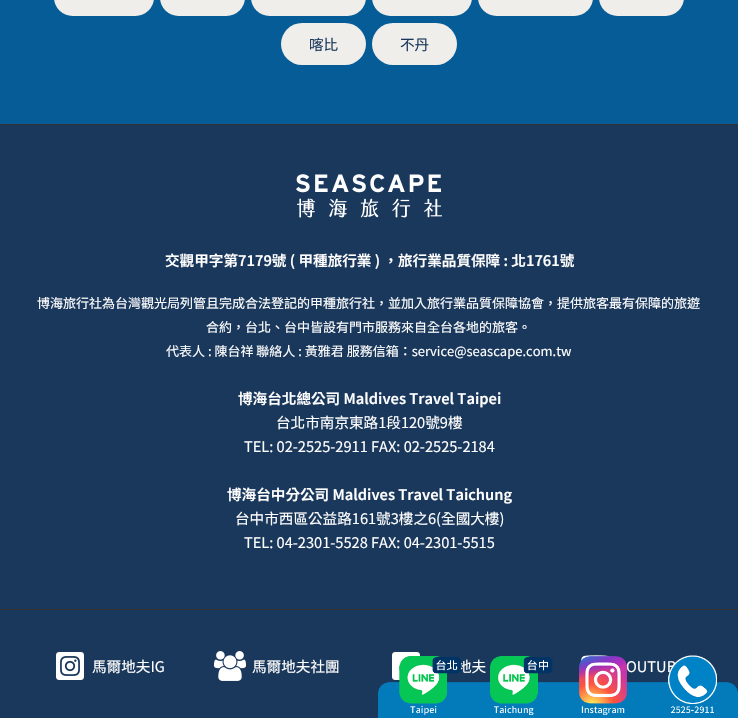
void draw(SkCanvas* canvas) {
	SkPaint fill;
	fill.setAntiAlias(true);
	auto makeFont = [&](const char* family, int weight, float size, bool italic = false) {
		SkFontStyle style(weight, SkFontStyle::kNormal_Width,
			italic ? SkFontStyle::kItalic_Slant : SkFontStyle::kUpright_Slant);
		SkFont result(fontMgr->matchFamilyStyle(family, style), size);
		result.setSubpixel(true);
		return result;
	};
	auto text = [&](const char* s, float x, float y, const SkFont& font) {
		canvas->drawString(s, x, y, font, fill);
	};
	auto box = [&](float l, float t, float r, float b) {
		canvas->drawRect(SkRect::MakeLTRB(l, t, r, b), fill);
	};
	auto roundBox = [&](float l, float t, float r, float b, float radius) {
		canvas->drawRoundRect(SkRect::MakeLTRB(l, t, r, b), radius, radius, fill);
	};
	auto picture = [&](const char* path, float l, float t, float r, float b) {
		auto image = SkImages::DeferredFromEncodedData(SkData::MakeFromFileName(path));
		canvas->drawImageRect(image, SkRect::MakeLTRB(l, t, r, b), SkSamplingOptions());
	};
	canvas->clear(0xFF065C96);
	fill.setColor(0xFFEFEEEA);
	roundBox(54, -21, 154, 16, 21);
	roundBox(160, -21, 245, 16, 21);
	roundBox(251, -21, 366, 16, 21);
	roundBox(372, -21, 472, 16, 21);
	roundBox(478, -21, 593, 16, 21);
	roundBox(599, -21, 684, 16, 21);
	roundBox(281, 23, 366, 65, 21);
	roundBox(372, 23, 457, 65, 21);
	fill.setColor(0xFF1A385C);
	box(0, 125, 738, 609);
	fill.setColor(0xFF333333);
	box(0, 124, 738, 125);
	picture("image0.png", 296, 174, 442, 218);
	fill.setColor(0xFF1A385C);
	box(0, 610, 738, 718);
	fill.setColor(0xFF333333);
	box(0, 609, 738, 610);
	picture("image1.png", 56, 652, 84, 680);
	picture("image2.png", 214, 651, 246, 681);
	picture("image3.png", 392, 652, 420, 680);
	picture("image4.png", 580, 655, 610, 672);
	auto font1 = makeFont("Noto Sans TC", 400, 14.6f);
	fill.setColor(0xFF1A385C);
	text("喀比", 309, 50, font1);
	text("不丹", 400, 50, font1);
	auto font2 = makeFont("Noto Sans TC", 600, 14.6f);
	fill.setColor(0xFFFFFFFF);
	text("交觀甲字第7179號 ( 甲種旅行業 ) ，旅行業品質保障 : 北1761號", 165, 266, font2);
	auto font3 = makeFont("Noto Sans TC", 400, 13);
	text("博海旅行社為台灣觀光局列管且完成合法登記的甲種旅行社，並加入旅行業品質保障協會，提供旅客最有保障的旅遊", 37, 308, font3);
	text("合約，台北、台中皆設有門市服務來自全台各地的旅客。", 206, 332, font3);
	text("代表人 : 陳台祥 聯絡人 : 黃雅君 服務信箱：service@seascape.com.tw", 166, 356, font3);
	text("博海台北總公司 Maldives Travel Taipei", 238, 404, font2);
	text("台北市南京東路1段120號9樓", 276, 428, font1);
	text("TEL: 02-2525-2911 FAX: 02-2525-2184", 244, 452, font1);
	text("博海台中分公司 Maldives Travel Taichung", 227, 500, font2);
	text("台中市西區公益路161號3樓之6(全國大樓)", 235, 524, font1);
	text("TEL: 04-2301-5528 FAX: 04-2301-5515", 244, 548, font1);
	text("馬爾地夫IG", 92, 672, font1);
	text("馬爾地夫社團", 252, 672, font1);
	text("地夫", 457, 672, font1);
	text("OUTUB", 626, 672, font1);
	picture("image5.png", 378, 656, 468, 718);
	picture("image6.png", 468, 656, 558, 718);
	picture("image7.png", 558, 656, 648, 718);
	picture("image8.png", 648, 655, 738, 718);
}
